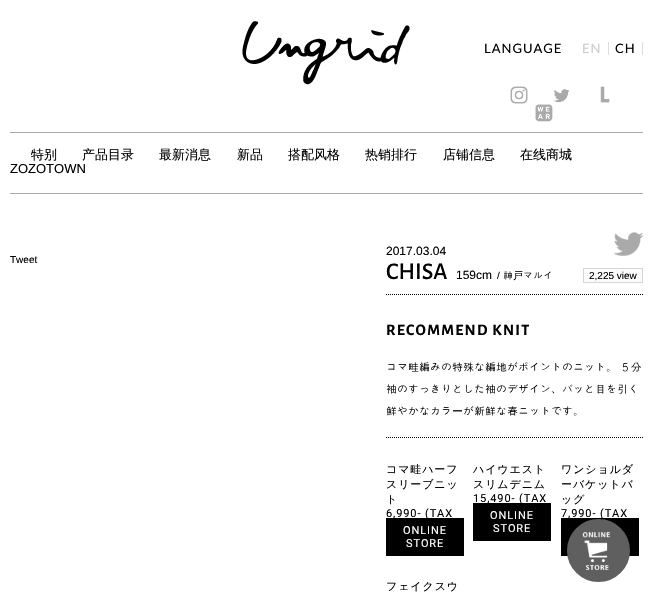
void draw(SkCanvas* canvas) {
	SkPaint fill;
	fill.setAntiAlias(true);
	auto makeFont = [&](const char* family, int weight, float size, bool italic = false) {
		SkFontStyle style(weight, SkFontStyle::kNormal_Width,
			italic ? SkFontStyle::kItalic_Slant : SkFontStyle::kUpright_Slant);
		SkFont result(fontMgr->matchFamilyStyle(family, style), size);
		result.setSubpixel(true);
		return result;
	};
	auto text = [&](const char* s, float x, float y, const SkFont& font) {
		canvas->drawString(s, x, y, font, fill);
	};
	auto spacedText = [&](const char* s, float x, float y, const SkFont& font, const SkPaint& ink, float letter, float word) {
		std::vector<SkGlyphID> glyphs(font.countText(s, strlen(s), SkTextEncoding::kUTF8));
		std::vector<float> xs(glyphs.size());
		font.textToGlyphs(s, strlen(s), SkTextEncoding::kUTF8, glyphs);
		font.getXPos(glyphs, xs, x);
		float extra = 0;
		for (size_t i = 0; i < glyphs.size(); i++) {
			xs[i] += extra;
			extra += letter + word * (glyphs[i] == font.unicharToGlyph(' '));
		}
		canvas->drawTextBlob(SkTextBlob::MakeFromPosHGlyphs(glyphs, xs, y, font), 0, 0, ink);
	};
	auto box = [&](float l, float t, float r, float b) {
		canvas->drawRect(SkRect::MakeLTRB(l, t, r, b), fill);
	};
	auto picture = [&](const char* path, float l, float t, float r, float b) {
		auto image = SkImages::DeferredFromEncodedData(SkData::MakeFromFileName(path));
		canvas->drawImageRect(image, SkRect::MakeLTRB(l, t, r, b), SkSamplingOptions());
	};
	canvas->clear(0xFFFFFFFF);
	picture("image0.png", 242, 21, 410, 85);
	fill.setColor(0xFFDDDDDD);
	box(608, 42, 609, 55);
	box(642, 42, 643, 55);
	picture("image1.png", 510, 86, 528, 104);
	picture("image2.png", 553, 89, 570, 103);
	picture("image3.png", 600, 86, 610, 103);
	picture("image4.png", 535, 104, 553, 122);
	fill.setColor(0xFFAAAAAA);
	box(10, 132, 643, 133);
	box(10, 193, 643, 194);
	picture("image5.png", 614, 232, 644, 256);
	fill.setColor(0xFFFBFBFB);
	canvas->drawRect(SkRect::MakeLTRB(583.5f, 268.5f, 642.5f, 282.5f), fill);
	fill.setStyle(SkPaint::kStroke_Style);
	fill.setStrokeWidth(1);
	fill.setColor(0xFFD6D6D6);
	canvas->drawRect(SkRect::MakeLTRB(583.5f, 268.5f, 642.5f, 282.5f), fill);
	fill.setColor(0xFF000000);
	fill.setPathEffect(SkDashPathEffect::Make({{1, 1}}, 0));
	canvas->drawPath(SkPathBuilder().moveTo(386, 294.5f).lineTo(643, 294.5f).detach(), fill);
	fill.setPathEffect(nullptr);
	fill.setPathEffect(SkDashPathEffect::Make({{1, 1}}, 0));
	canvas->drawPath(SkPathBuilder().moveTo(386, 437.5f).lineTo(643, 437.5f).detach(), fill);
	fill.setPathEffect(nullptr);
	fill.setStyle(SkPaint::kFill_Style);
	box(386, 518, 464, 556);
	box(473, 503, 551, 541);
	box(561, 518, 639, 556);
	fill.setColor(0xFF5F5F5F);
	canvas->drawCircle(598, 551, 29.5f, fill);
	fill.setStyle(SkPaint::kStroke_Style);
	canvas->drawCircle(598, 551, 29.5f, fill);
	canvas->drawCircle(598, 551, 29.5f, fill);
	canvas->drawCircle(598, 551, 29.5f, fill);
	auto font1 = makeFont("Lato", 400, 13);
	fill.setStyle(SkPaint::kFill_Style);
	fill.setColor(0xFF000000);
	spacedText("LANGUAGE", 484, 53, font1, fill, 1, 0);
	fill.setColor(0xFFCCCCCC);
	spacedText("EN", 582, 53, font1, fill, 1, 0);
	fill.setColor(0xFF000000);
	spacedText("CH", 615, 53, font1, fill, 1, 0);
	auto font2 = makeFont("WenQuanYi Zen Hei", 500, 13);
	text("特别", 31, 159, font2);
	text("产品目录", 82, 159, font2);
	text("最新消息", 159, 159, font2);
	text("新品", 237, 159, font2);
	text("搭配风格", 288, 159, font2);
	text("热销排行", 365, 159, font2);
	text("店铺信息", 443, 159, font2);
	text("在线商城", 520, 159, font2);
	auto font3 = makeFont("Liberation Sans", 400, 13);
	text("ZOZOTOWN", 10, 173, font3);
	auto font4 = makeFont("Liberation Sans", 400, 10);
	text("Tweet", 10, 263, font4);
	auto font5 = makeFont("Liberation Sans", 400, 12);
	text("2017.03.04", 386, 255, font5);
	auto font6 = makeFont("Alegreya Sans", 500, 24);
	text("CHISA", 386, 279, font6);
	text("159cm", 456, 279, font5);
	text("/", 497, 279, font4);
	auto font7 = makeFont("Gulim", 400, 10);
	text("神", 503, 279, font7);
	auto font8 = makeFont("WenQuanYi Zen Hei", 500, 10);
	text("戸", 513, 279, font8);
	text("マルイ", 523, 279, font7);
	text("2,225 view", 589, 279, font4);
	auto font9 = makeFont("Alegreya Sans", 700, 16);
	spacedText("RECOMMEND KNIT", 386, 335, font9, fill, 1.25f, 0);
	auto font10 = makeFont("Gulim", 400, 11);
	spacedText("コマ畦編みの特殊な編地がポイントのニット。 ５分", 386, 371, font10, fill, 0, -1);
	text("袖のすっきりとした袖のデザイン、パッと目を引く", 386, 393, font10);
	text("鮮やかなカラ", 386, 415, font10);
	auto font11 = makeFont("WenQuanYi Zen Hei", 500, 11);
	text("ー", 452, 415, font11);
	text("が新鮮な春ニットです。", 463, 415, font10);
	spacedText("コマ畦ハーフ", 386, 473, font11, fill, 0.9f, 0);
	spacedText("スリーブニッ", 386, 488, font11, fill, 0.9f, 0);
	spacedText("ト", 386, 503, font11, fill, 0.9f, 0);
	auto font12 = makeFont("Roboto", 400, 11);
	spacedText("6,990- (TAX", 386, 517, font12, fill, 0.9f, 0);
	fill.setColor(0xFFFFFFFF);
	spacedText("ONLINE", 403, 534, font12, fill, 0.9f, 0);
	spacedText("STORE", 406, 547, font12, fill, 0.9f, 0);
	fill.setColor(0xFF000000);
	spacedText("ハイウエスト", 473, 473, font11, fill, 0.9f, 0);
	spacedText("スリムデニム", 473, 488, font11, fill, 0.9f, 0);
	spacedText("15,490- (TAX", 473, 502, font12, fill, 0.9f, 0);
	fill.setColor(0xFFFFFFFF);
	spacedText("ONLINE", 490, 519, font12, fill, 0.9f, 0);
	spacedText("STORE", 493, 532, font12, fill, 0.9f, 0);
	fill.setColor(0xFF000000);
	spacedText("ワンショルダ", 561, 473, font11, fill, 0.9f, 0);
	spacedText("ーバケットバ", 561, 488, font11, fill, 0.9f, 0);
	spacedText("ッグ", 561, 503, font11, fill, 0.9f, 0);
	spacedText("7,990- (TAX", 561, 517, font12, fill, 0.9f, 0);
	spacedText("フェイクスウ", 386, 590, font11, fill, 0.9f, 0);
	fill.setStyle(SkPaint::kStroke_Style);
	fill.setStrokeWidth(4);
	fill.setColor(0xFF5F5F5F);
	canvas->drawCircle(598.5f, 550.5f, 29.5f, fill);
	picture("image6.png", 582, 532, 610, 570);
}
